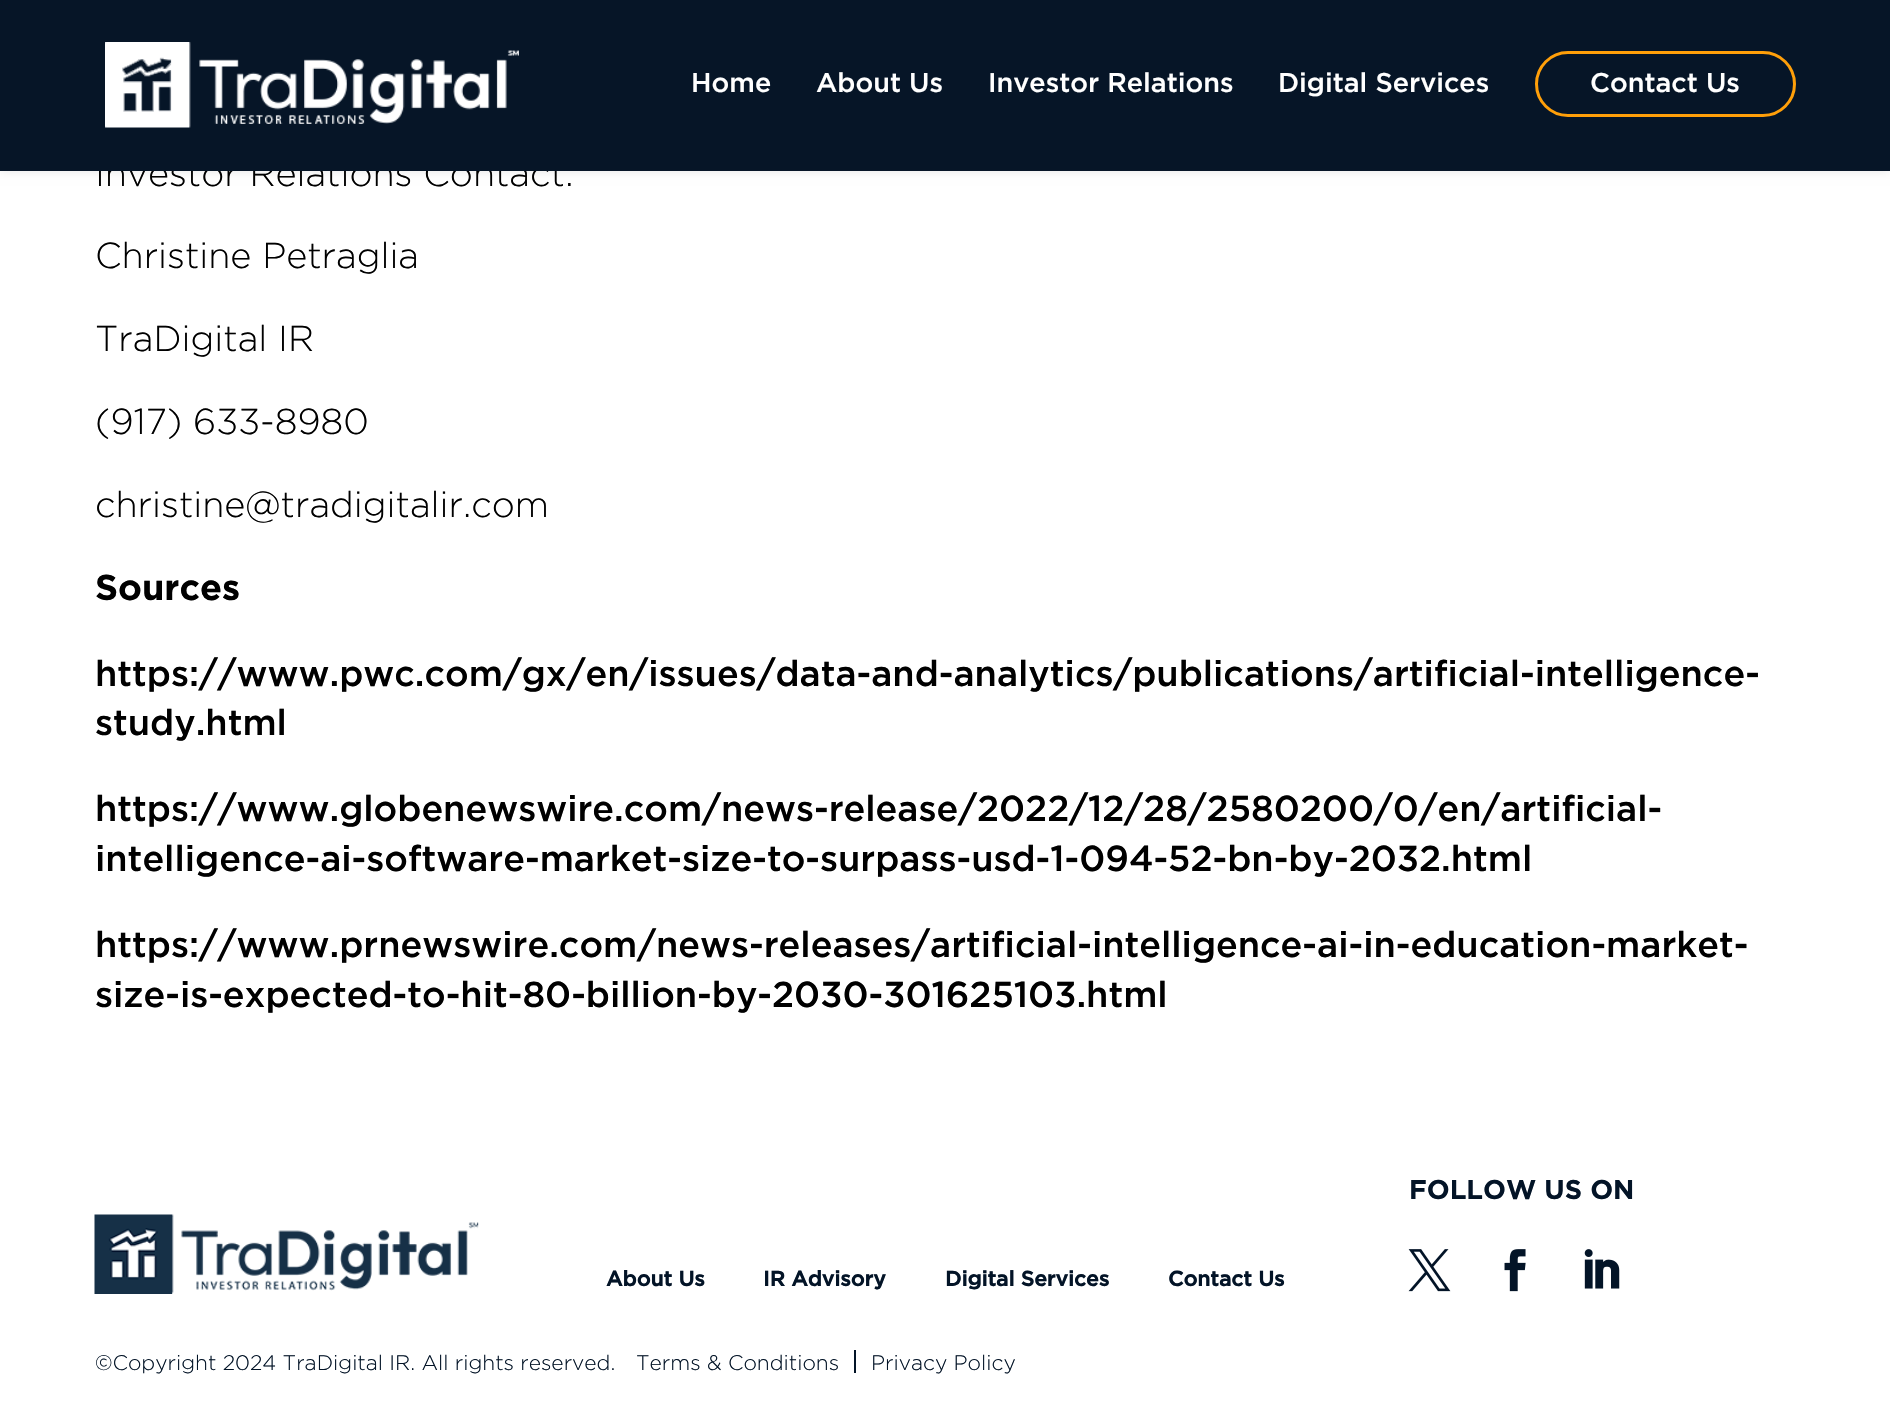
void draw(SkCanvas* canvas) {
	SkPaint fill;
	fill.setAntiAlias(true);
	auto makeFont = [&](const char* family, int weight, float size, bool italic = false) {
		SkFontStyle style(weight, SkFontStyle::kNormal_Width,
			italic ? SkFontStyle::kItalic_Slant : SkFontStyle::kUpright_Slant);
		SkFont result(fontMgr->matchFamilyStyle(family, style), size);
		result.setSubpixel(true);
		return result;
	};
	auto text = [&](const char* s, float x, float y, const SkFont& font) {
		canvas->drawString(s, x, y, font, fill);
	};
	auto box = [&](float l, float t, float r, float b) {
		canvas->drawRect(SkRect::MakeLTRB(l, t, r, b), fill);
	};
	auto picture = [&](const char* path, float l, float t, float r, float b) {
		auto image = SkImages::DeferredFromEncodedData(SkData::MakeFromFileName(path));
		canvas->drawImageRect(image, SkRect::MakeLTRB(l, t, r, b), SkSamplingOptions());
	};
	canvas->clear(0xFFFFFFFF);
	fill.setColor(0x1A000000);
	fill.setMaskFilter(SkMaskFilter::MakeBlur(kNormal_SkBlurStyle, 5));
	canvas->drawRect(SkRect::MakeLTRB(0, 0, 1890, 171), fill);
	fill.setMaskFilter(nullptr);
	picture("image1.png", 1408, 1249, 1451, 1292);
	picture("image2.png", 1504, 1249, 1526, 1292);
	picture("image3.png", 1584, 1249, 1620, 1289);
	picture("image4.png", 94, 1214, 479, 1294);
	fill.setColor(0xFF031427);
	box(854, 1350, 856, 1373);
	auto font1 = makeFont("Gotham", 300, 36);
	fill.setColor(0xFF000000);
	text("Investor Relations Contact:", 95, 186, font1);
	fill.setColor(0xFF061527);
	box(0, 0, 1890, 171);
	fill.setStyle(SkPaint::kStroke_Style);
	fill.setStrokeWidth(3);
	fill.setColor(0xFFFF9F09);
	canvas->drawRoundRect(SkRect::MakeLTRB(1536.5f, 52.5f, 1794.5f, 115.5f), 31.5f, 31.5f, fill);
	auto font2 = makeFont("Gotham", 500, 27);
	fill.setStyle(SkPaint::kFill_Style);
	fill.setColor(0xFFFFFFFF);
	text("Contact Us", 1590, 92, font2);
	text("Digital Services", 1278, 92, font2);
	text("Investor Relations", 988, 92, font2);
	text("About Us", 816, 92, font2);
	text("Home", 691, 92, font2);
	picture("image0.png", 105, 42, 519, 128);
	fill.setColor(0xFF000000);
	text("Christine Petraglia", 95, 268, font1);
	text("TraDigital IR", 95, 351, font1);
	text("(917) 633-8980", 95, 434, font1);
	text("christine@tradigitalir.com", 95, 517, font1);
	auto font3 = makeFont("Gotham", 700, 36);
	text("Sources", 95, 600, font3);
	auto font4 = makeFont("Gotham", 500, 36);
	text("https://www.pwc.com/gx/en/issues/data-and-analytics/publications/artificial-intelligence-", 95, 686, font4);
	text("study.html", 95, 735, font4);
	text("https://www.globenewswire.com/news-release/2022/12/28/2580200/0/en/artificial-", 95, 821, font4);
	text("intelligence-ai-software-market-size-to-surpass-usd-1-094-52-bn-by-2032.html", 95, 871, font4);
	text("https://www.prnewswire.com/news-releases/artificial-intelligence-ai-in-education-market-", 95, 957, font4);
	text("size-is-expected-to-hit-80-billion-by-2030-301625103.html", 95, 1007, font4);
	auto font5 = makeFont("Gotham", 700, 27);
	fill.setColor(0xFF031427);
	text("FOLLOW US ON", 1409, 1199, font5);
	auto font6 = makeFont("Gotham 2", 700, 21);
	text("About Us", 606, 1286, font6);
	text("IR Advisory", 763, 1286, font6);
	text("Digital Services", 945, 1286, font6);
	text("Contact Us", 1168, 1286, font6);
	auto font7 = makeFont("Gotham", 300, 21);
	text("©Copyright 2024 TraDigital IR. All rights reserved.", 95, 1370, font7);
	text("Terms & Conditions", 636, 1370, font7);
	text("Privacy Policy", 871, 1370, font7);
}
